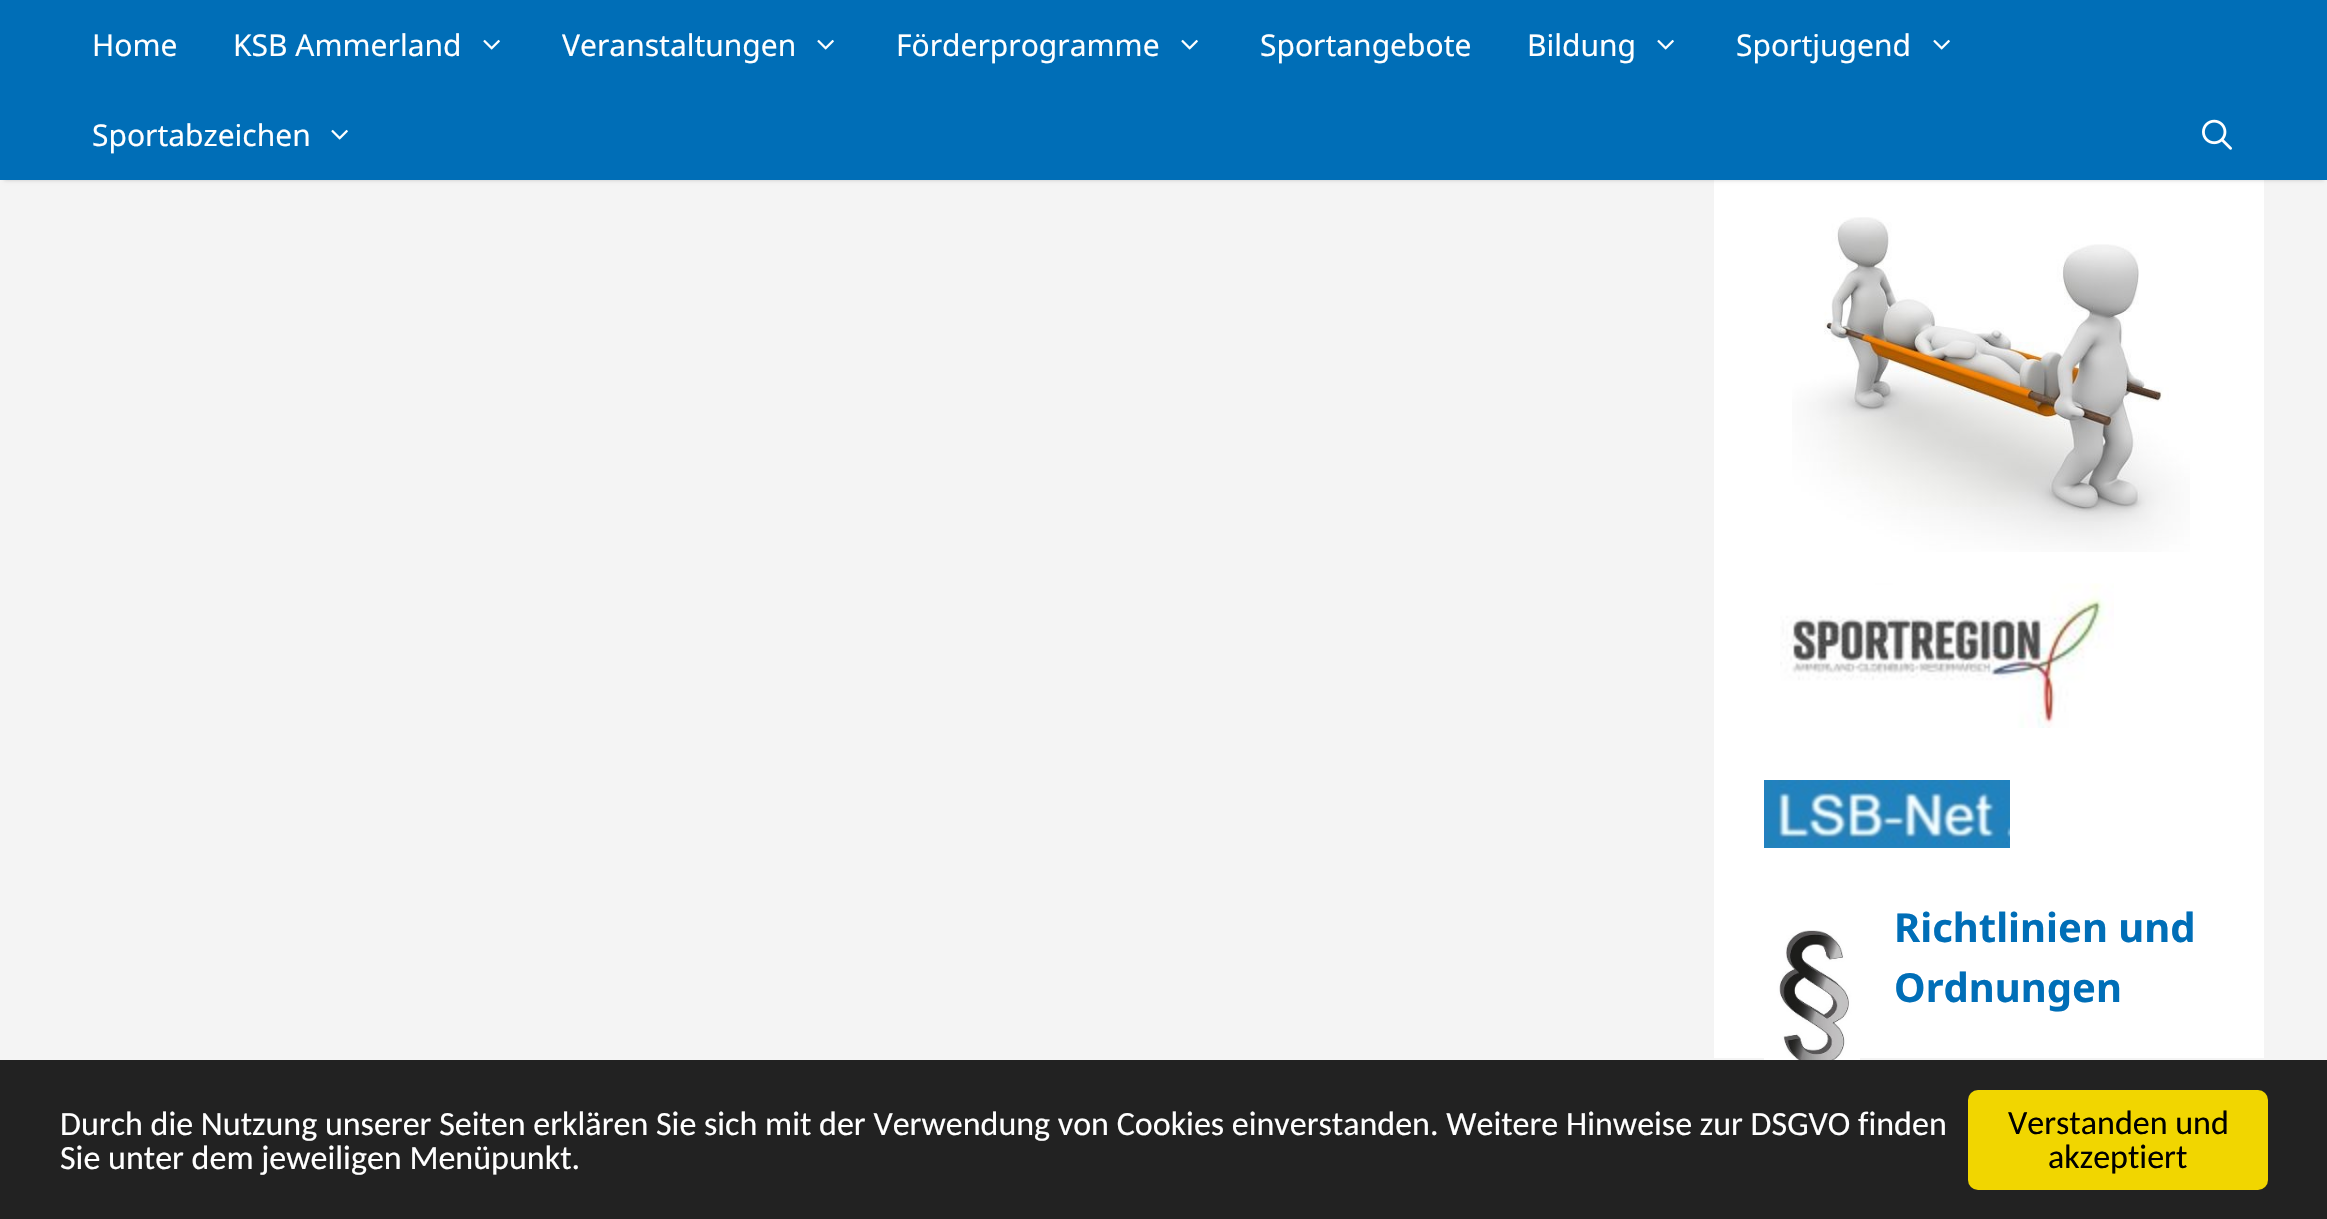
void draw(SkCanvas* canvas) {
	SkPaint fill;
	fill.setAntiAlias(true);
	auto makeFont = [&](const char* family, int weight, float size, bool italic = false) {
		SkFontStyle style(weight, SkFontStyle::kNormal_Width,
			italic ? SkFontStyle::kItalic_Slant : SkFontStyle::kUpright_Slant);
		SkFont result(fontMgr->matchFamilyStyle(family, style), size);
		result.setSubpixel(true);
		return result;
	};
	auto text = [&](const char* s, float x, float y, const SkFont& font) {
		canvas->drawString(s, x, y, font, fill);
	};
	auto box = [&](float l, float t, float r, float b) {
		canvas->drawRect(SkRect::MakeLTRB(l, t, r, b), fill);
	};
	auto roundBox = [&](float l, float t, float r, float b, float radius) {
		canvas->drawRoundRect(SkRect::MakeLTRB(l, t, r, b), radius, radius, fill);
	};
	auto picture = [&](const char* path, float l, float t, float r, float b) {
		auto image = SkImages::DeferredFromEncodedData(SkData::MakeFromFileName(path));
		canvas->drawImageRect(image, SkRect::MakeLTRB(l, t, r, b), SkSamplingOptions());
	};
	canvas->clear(0xFFF4F4F4);
	fill.setColor(0xFFFFFFFF);
	box(1714, 180, 2264, 1058);
	fill.setColor(0x33000000);
	fill.setMaskFilter(SkMaskFilter::MakeBlur(kNormal_SkBlurStyle, 2));
	canvas->drawRect(SkRect::MakeLTRB(4, 8, 2324, 180), fill);
	fill.setMaskFilter(nullptr);
	fill.setColor(0xFF006EB7);
	box(0, 0, 2327, 180);
	picture("image0.png", 483, 39, 500, 50);
	picture("image0.png", 817, 39, 834, 50);
	picture("image0.png", 1181, 39, 1198, 50);
	picture("image0.png", 1657, 39, 1674, 50);
	picture("image0.png", 1933, 39, 1950, 50);
	picture("image0.png", 331, 129, 348, 140);
	picture("image1.png", 2202, 119, 2232, 150);
	picture("image2.png", 1792, 217, 2190, 552);
	picture("image3.png", 1780, 583, 2114, 728);
	picture("image4.png", 1764, 780, 2010, 848);
	picture("image5.png", 1764, 930, 1860, 1060);
	fill.setColor(0xFF222222);
	box(0, 1060, 2327, 1219);
	fill.setColor(0xFFF1D600);
	roundBox(1968, 1090, 2268, 1190, 10);
	auto font1 = makeFont("Noto Sans", 400, 30);
	fill.setColor(0xFFFFFFFF);
	text("Home", 92, 56, font1);
	text("KSB Ammerland", 233, 56, font1);
	text("Veranstaltungen", 562, 56, font1);
	text("Förderprogramme", 896, 56, font1);
	text("Sportangebote", 1260, 56, font1);
	text("Bildung", 1527, 56, font1);
	text("Sportjugend", 1736, 56, font1);
	text("Sportabzeichen", 92, 146, font1);
	auto font2 = makeFont("Noto Sans", 700, 40);
	fill.setColor(0xFF006EB7);
	text("Richtlinien und", 1894, 942, font2);
	text("Ordnungen", 1894, 1002, font2);
	auto font3 = makeFont("Carlito", 400, 34);
	fill.setColor(0xFFFFFFFF);
	text("Durch die Nutzung unserer Seiten erklären Sie sich mit der Verwendung von Cookies einverstanden. Weitere Hinweise zur DSGVO finden", 60, 1135, font3);
	text("Sie unter dem jeweiligen Menüpunkt.", 60, 1169, font3);
	fill.setColor(0xFF000000);
	text("Verstanden und", 2008, 1134, font3);
	text("akzeptiert", 2048, 1168, font3);
}
